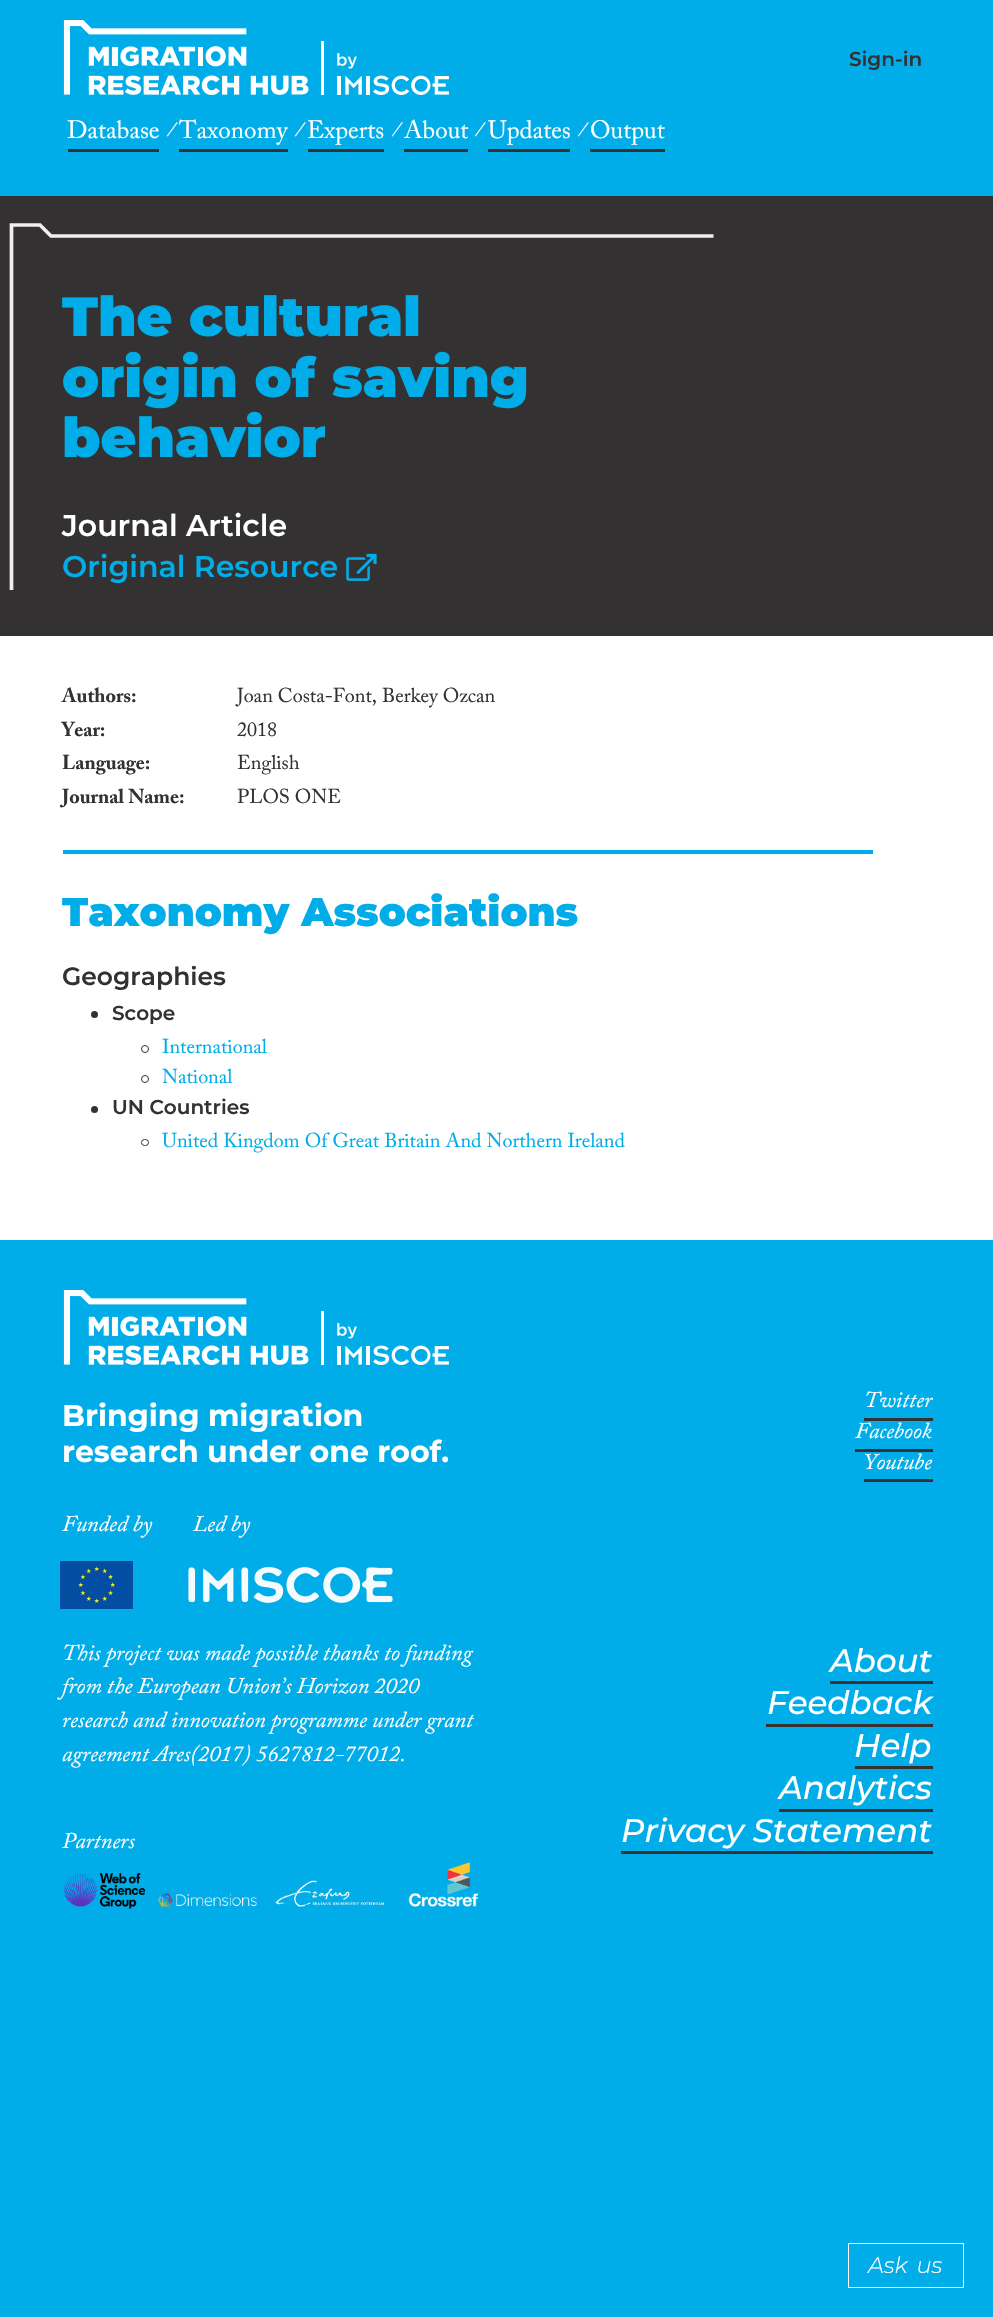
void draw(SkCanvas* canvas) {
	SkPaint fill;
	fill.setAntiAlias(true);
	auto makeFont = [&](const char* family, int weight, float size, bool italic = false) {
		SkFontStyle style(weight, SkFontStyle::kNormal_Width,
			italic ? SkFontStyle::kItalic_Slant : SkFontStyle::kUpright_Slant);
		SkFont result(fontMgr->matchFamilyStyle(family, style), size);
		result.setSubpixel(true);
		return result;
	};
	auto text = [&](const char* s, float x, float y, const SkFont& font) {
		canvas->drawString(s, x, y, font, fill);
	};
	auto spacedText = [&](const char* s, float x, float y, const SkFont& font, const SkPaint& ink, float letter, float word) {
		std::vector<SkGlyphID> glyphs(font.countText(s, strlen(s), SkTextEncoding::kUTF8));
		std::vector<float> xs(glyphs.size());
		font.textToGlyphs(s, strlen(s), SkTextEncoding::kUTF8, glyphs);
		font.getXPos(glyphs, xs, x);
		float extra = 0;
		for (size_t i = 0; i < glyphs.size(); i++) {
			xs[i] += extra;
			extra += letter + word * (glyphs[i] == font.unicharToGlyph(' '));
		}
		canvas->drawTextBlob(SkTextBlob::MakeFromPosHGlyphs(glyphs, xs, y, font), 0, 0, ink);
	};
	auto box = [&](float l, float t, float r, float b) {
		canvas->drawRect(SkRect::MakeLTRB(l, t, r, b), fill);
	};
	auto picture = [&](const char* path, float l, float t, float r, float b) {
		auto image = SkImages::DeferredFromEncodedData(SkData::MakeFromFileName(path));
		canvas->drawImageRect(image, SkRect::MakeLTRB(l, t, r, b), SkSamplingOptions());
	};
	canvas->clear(0xFF00ADE8);
	picture("image0.png", 63, 20, 449, 95);
	fill.setColor(0xFF333132);
	box(68, 149, 159, 152);
	box(179, 149, 288, 152);
	box(308, 149, 384, 152);
	box(404, 149, 468, 152);
	box(488, 149, 570, 152);
	box(590, 149, 665, 152);
	box(0, 196, 993, 636);
	canvas->save();
	canvas->clipRect(SkRect::MakeLTRB(0, 184, 740, 590));
	fill.setStyle(SkPaint::kStroke_Style);
	fill.setStrokeWidth(3.7f);
	fill.setColor(0xFFF0EFEE);
	canvas->drawPath(SkPathBuilder().moveTo(713.5f, 236).lineTo(51, 236).lineTo(40, 225).lineTo(11.5f, 225).lineTo(11.5f, 656.5f).detach(), fill);
	canvas->restore();
	picture("image1.png", 346, 553, 377, 581);
	fill.setStyle(SkPaint::kFill_Style);
	fill.setColor(0xFFFFFFFF);
	box(0, 636, 993, 1240);
	fill.setColor(0xFF00ADE8);
	box(63, 850, 873, 854);
	fill.setColor(0xFF333132);
	canvas->drawCircle(94.5f, 1014.5f, 3.5f, fill);
	fill.setStyle(SkPaint::kStroke_Style);
	fill.setStrokeWidth(1);
	canvas->drawCircle(145, 1049, 3.5f, fill);
	canvas->drawCircle(145, 1079, 3.5f, fill);
	fill.setStyle(SkPaint::kFill_Style);
	canvas->drawCircle(94.5f, 1109.5f, 3.5f, fill);
	fill.setStyle(SkPaint::kStroke_Style);
	canvas->drawRoundRect(SkRect::MakeLTRB(141.5f, 1139.5f, 148.5f, 1145.5f), 3, 3, fill);
	picture("image0.png", 63, 1290, 449, 1365);
	picture("image2.png", 60, 1561, 393, 1609);
	picture("image3.png", 64, 1862, 478, 1909);
	fill.setStyle(SkPaint::kFill_Style);
	box(864, 1418, 933, 1421);
	box(855, 1449, 933, 1452);
	box(864, 1479, 933, 1482);
	box(830, 1681, 933, 1684);
	box(766, 1724, 933, 1727);
	box(855, 1766, 933, 1769);
	box(779, 1809, 933, 1812);
	box(621, 1851, 933, 1854);
	fill.setStyle(SkPaint::kStroke_Style);
	fill.setColor(0xFFFFFFFF);
	canvas->drawRect(SkRect::MakeLTRB(848.5f, 2243.5f, 963.5f, 2287.5f), fill);
	auto font1 = makeFont("Montserrat", 600, 20);
	fill.setStyle(SkPaint::kFill_Style);
	fill.setColor(0xFF333132);
	text("Sign-in", 849, 66, font1);
	auto font2 = makeFont("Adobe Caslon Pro", 400, 25);
	fill.setColor(0xFFFFFFFF);
	text("Database", 67, 138, font2);
	auto font3 = makeFont("Adobe Caslon Pro", 400, 20, true);
	text("/", 168, 136, font3);
	text("Taxonomy", 179, 138, font2);
	text("/", 296, 136, font3);
	text("Experts", 307, 138, font2);
	text("/", 393, 136, font3);
	text("About", 404, 138, font2);
	text("/", 476, 136, font3);
	text("Updates", 488, 138, font2);
	text("/", 579, 136, font3);
	text("Output", 590, 138, font2);
	auto font4 = makeFont("Montserrat", 900, 55);
	fill.setColor(0xFF00ADE8);
	text("The cultural", 62, 336, font4);
	text("origin of saving", 62, 397, font4);
	text("behavior", 62, 457, font4);
	auto font5 = makeFont("Montserrat", 600, 30);
	fill.setColor(0xFFFFFFFF);
	text("Journal Article", 62, 536, font5);
	fill.setColor(0xFF00ADE8);
	text("Original Resource", 62, 577, font5);
	auto font6 = makeFont("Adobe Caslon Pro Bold", 700, 20);
	fill.setColor(0xFF333132);
	text("Authors:", 62, 702, font6);
	auto font7 = makeFont("Adobe Caslon Pro", 400, 20);
	text("Joan Costa-Font, Berkey Ozcan", 237, 702, font7);
	text("Year:", 62, 736, font6);
	text("2018", 237, 736, font7);
	text("Language:", 62, 769, font6);
	text("English", 237, 769, font7);
	text("Journal Name:", 62, 803, font6);
	text("PLOS ONE", 237, 803, font7);
	auto font8 = makeFont("Montserrat", 900, 40);
	fill.setColor(0xFF00ADE8);
	text("Taxonomy Associations", 62, 926, font8);
	auto font9 = makeFont("Montserrat", 600, 25);
	fill.setColor(0xFF333132);
	text("Geographies", 62, 985, font9);
	text("Scope", 112, 1020, font1);
	fill.setColor(0xFF00ADE8);
	text("International", 162, 1053, font7);
	text("National", 162, 1083, font7);
	fill.setColor(0xFF333132);
	text("UN Countries", 112, 1114, font1);
	fill.setColor(0xFF00ADE8);
	text("United Kingdom Of Great Britain And Northern Ireland", 162, 1147, font7);
	auto font10 = makeFont("Montserrat", 700, 30);
	fill.setColor(0xFFFFFFFF);
	text("Bringing migration", 62, 1426, font10);
	text("research under one roof.", 62, 1462, font10);
	auto font11 = makeFont("Adobe Caslon Pro", 400, 22.5f, true);
	text("Funded by", 62, 1531, font11);
	text("Led by", 193, 1531, font11);
	text("This project was made possible thanks to funding", 62, 1660, font11);
	text("from the European Union’s Horizon 2020", 62, 1693, font11);
	text("research and innovation programme under grant", 62, 1727, font11);
	text("agreement Ares(2017) 5627812-77012.", 62, 1761, font11);
	text("Partners", 62, 1848, font11);
	text("Twitter", 864, 1407, font11);
	text("Facebook", 855, 1438, font11);
	text("Youtube", 864, 1469, font11);
	auto font12 = makeFont("Montserrat", 500, 32.5f, true);
	text("About", 830, 1672, font12);
	text("Feedback", 767, 1714, font12);
	text("Help", 854, 1757, font12);
	text("Analytics", 779, 1799, font12);
	text("Privacy Statement", 621, 1842, font12);
	auto font13 = makeFont("Montserrat", 300, 22.5f, true);
	spacedText("Ask us", 868, 2273, font13, fill, 0, 3);
}
